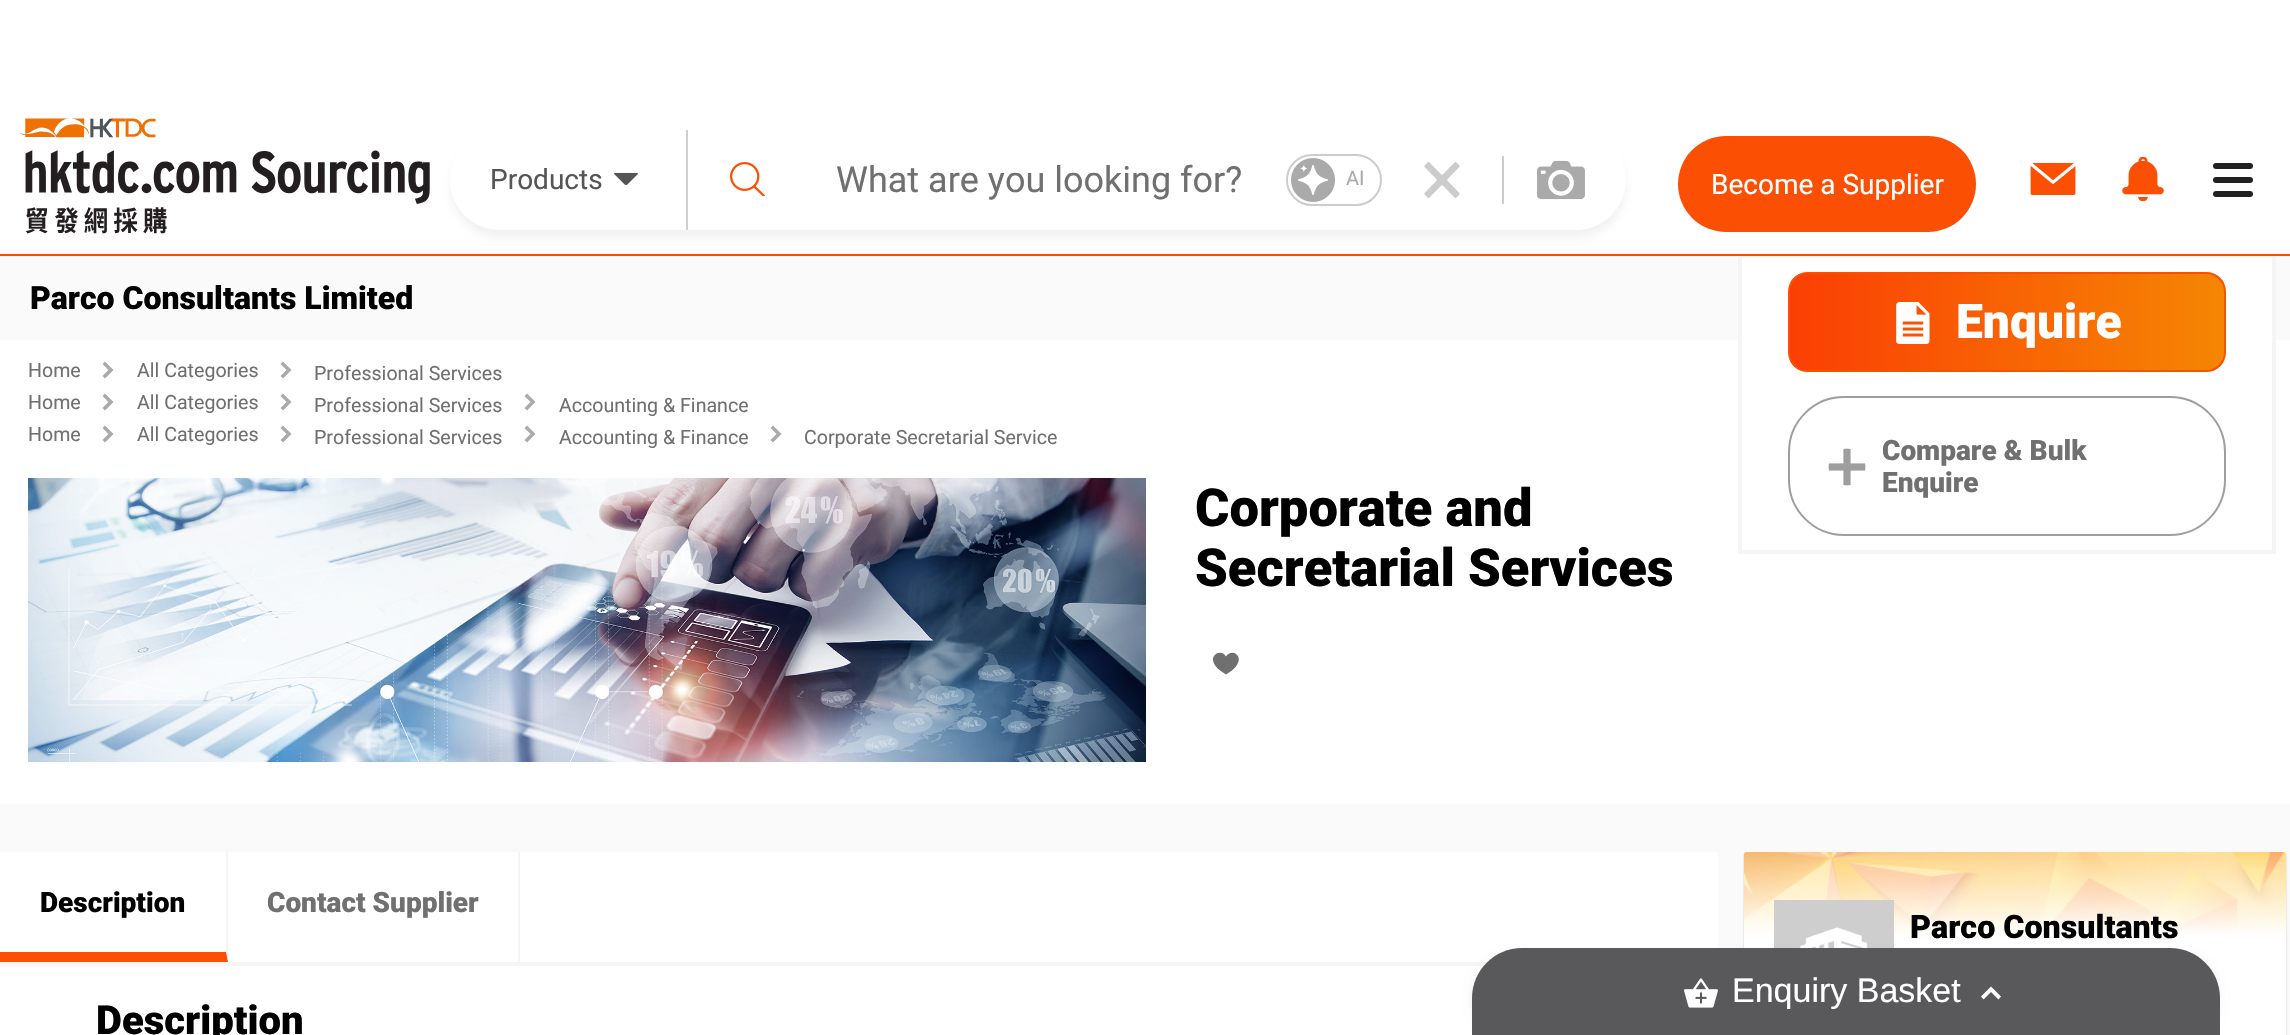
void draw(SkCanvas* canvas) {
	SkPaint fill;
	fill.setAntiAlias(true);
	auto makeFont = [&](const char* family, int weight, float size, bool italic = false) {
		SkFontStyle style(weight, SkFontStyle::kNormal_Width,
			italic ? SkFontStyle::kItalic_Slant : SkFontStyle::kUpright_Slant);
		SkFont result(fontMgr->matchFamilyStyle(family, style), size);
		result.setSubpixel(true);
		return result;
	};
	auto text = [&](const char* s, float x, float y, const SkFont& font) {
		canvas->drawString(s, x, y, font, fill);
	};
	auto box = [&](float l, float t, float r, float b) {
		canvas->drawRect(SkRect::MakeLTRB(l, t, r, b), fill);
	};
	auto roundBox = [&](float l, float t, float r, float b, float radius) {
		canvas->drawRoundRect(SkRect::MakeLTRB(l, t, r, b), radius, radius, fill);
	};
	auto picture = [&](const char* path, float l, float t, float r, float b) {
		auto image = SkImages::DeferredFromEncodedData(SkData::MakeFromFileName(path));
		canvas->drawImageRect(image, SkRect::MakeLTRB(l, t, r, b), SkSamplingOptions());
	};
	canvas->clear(0xFFFFFFFF);
	fill.setColor(0xFFFAFAFA);
	box(0, 256, 2290, 340);
	fill.setColor(0xFFFFFFFF);
	box(1742, 258, 2272, 340);
	fill.setStyle(SkPaint::kStroke_Style);
	fill.setStrokeWidth(4);
	fill.setColor(0xFFF5F5F5);
	canvas->drawRect(SkRect::MakeLTRB(1740, 256, 2274, 552), fill);
	fill.setStyle(SkPaint::kFill_Style);
	fill.setColor(0xFFFB5004);
	box(0, 254, 2290, 256);
	picture("image0.png", 20, 118, 430, 234);
	canvas->save();
	canvas->clipPath(SkPathBuilder(SkPathFillType::kEvenOdd).moveTo(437, 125).lineTo(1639, 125).lineTo(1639, 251).lineTo(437, 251).close().moveTo(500, 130).lineTo(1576, 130).cubicTo(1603.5f, 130, 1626, 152.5f, 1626, 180).cubicTo(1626, 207.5f, 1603.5f, 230, 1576, 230).lineTo(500, 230).cubicTo(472.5f, 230, 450, 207.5f, 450, 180).cubicTo(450, 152.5f, 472.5f, 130, 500, 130).close().detach(), true);
	fill.setColor(0x1A7F7F7F);
	fill.setMaskFilter(SkMaskFilter::MakeBlur(kNormal_SkBlurStyle, 4));
	canvas->drawRoundRect(SkRect::MakeLTRB(450, 138, 1626, 238), 50, 50, fill);
	fill.setMaskFilter(nullptr);
	canvas->restore();
	fill.setColor(0xFFCFCFCF);
	box(686, 130, 688, 230);
	picture("image1.png", 614, 172, 638, 185);
	picture("image2.png", 730, 162, 765, 196);
	fill.setStyle(SkPaint::kStroke_Style);
	fill.setStrokeWidth(2);
	fill.setColor(0xFFCCCCCC);
	canvas->drawRoundRect(SkRect::MakeLTRB(1287, 155, 1381, 205), 25, 25, fill);
	picture("image3.png", 1291, 158, 1335, 202);
	picture("image4.png", 1424, 162, 1460, 198);
	fill.setStyle(SkPaint::kFill_Style);
	box(1502, 156, 1504, 204);
	picture("image5.png", 1537, 160, 1585, 200);
	fill.setColor(0xFFFB5004);
	roundBox(1678, 136, 1976, 232, 48);
	picture("image6.png", 2030, 163, 2076, 195);
	picture("image7.png", 2122, 157, 2164, 201);
	fill.setColor(0xFF222222);
	roundBox(2213, 163, 2253, 169, 3);
	roundBox(2213, 177, 2253, 183, 3);
	roundBox(2213, 191, 2253, 197, 3);
	canvas->save();
	canvas->clipPath(SkPathBuilder().moveTo(1808, 272).lineTo(2206, 272).cubicTo(2217, 272, 2226, 281, 2226, 292).lineTo(2226, 352).cubicTo(2226, 363, 2217, 372, 2206, 372).lineTo(1808, 372).cubicTo(1797, 372, 1788, 363, 1788, 352).lineTo(1788, 292).cubicTo(1788, 281, 1797, 272, 1808, 272).close().detach(), true);
	{
		const SkColor colors[] = {0xFFF58603, 0xFFFB3F04};
		const float stops[] = {0, 1};
		const SkPoint ends[] = {{2224, 322}, {1790, 322}};
		fill.setShader(SkGradientShader::MakeLinear(ends, colors, stops, 2, SkTileMode::kClamp));
		fill.setAlpha(255);
	}
	box(1790, 274, 2224, 370);
	canvas->restore();
	fill.setStyle(SkPaint::kStroke_Style);
	fill.setShader(nullptr);
	fill.setColor(0xFFFB5004);
	canvas->drawRoundRect(SkRect::MakeLTRB(1789, 273, 2225, 371), 19, 19, fill);
	picture("image8.png", 1896, 302, 1930, 344);
	fill.setColor(0xFF9E9E9E);
	canvas->drawRoundRect(SkRect::MakeLTRB(1789, 397, 2225, 535), 55, 55, fill);
	picture("image9.png", 1828, 448, 1866, 486);
	fill.setStyle(SkPaint::kFill_Style);
	fill.setColor(0xFFAAAAAA);
	canvas->drawPath(SkPathBuilder().moveTo(105, 378.5f).lineTo(113.5f, 370).lineTo(105, 361.5f).lineTo(102.5f, 364).lineTo(108.5f, 370).lineTo(102.5f, 376).close().detach(), fill);
	canvas->drawPath(SkPathBuilder().moveTo(283, 378.5f).lineTo(291.5f, 370).lineTo(283, 361.5f).lineTo(280.5f, 364).lineTo(286.5f, 370).lineTo(280.5f, 376).close().detach(), fill);
	canvas->drawPath(SkPathBuilder().moveTo(105, 410.5f).lineTo(113.5f, 402).lineTo(105, 393.5f).lineTo(102.5f, 396).lineTo(108.5f, 402).lineTo(102.5f, 408).close().detach(), fill);
	canvas->drawPath(SkPathBuilder().moveTo(283, 410.5f).lineTo(291.5f, 402).lineTo(283, 393.5f).lineTo(280.5f, 396).lineTo(286.5f, 402).lineTo(280.5f, 408).close().detach(), fill);
	canvas->drawPath(SkPathBuilder().moveTo(527, 410.5f).lineTo(535.5f, 402).lineTo(527, 393.5f).lineTo(524.5f, 396).lineTo(530.5f, 402).lineTo(524.5f, 408).close().detach(), fill);
	canvas->drawPath(SkPathBuilder().moveTo(105, 442.5f).lineTo(113.5f, 434).lineTo(105, 425.5f).lineTo(102.5f, 428).lineTo(108.5f, 434).lineTo(102.5f, 440).close().detach(), fill);
	canvas->drawPath(SkPathBuilder().moveTo(283, 442.5f).lineTo(291.5f, 434).lineTo(283, 425.5f).lineTo(280.5f, 428).lineTo(286.5f, 434).lineTo(280.5f, 440).close().detach(), fill);
	canvas->drawPath(SkPathBuilder().moveTo(527, 442.5f).lineTo(535.5f, 434).lineTo(527, 425.5f).lineTo(524.5f, 428).lineTo(530.5f, 434).lineTo(524.5f, 440).close().detach(), fill);
	canvas->drawPath(SkPathBuilder().moveTo(773, 442.5f).lineTo(781.5f, 434).lineTo(773, 425.5f).lineTo(770.5f, 428).lineTo(776.5f, 434).lineTo(770.5f, 440).close().detach(), fill);
	picture("image10.png", 28, 478, 1146, 762);
	fill.setColor(0xFF707070);
	canvas->drawPath(SkPathBuilder().moveTo(1226, 656.5f).cubicTo(1231.5f, 647, 1248, 657, 1232, 670.5f).lineTo(1226, 674.5f).lineTo(1220, 670.5f).cubicTo(1217, 668, 1213.5f, 664.5f, 1213, 660).cubicTo(1212.5f, 654.5f, 1219, 650.5f, 1224, 654).close().detach(), fill);
	fill.setColor(0xFFFAFAFA);
	box(0, 804, 2290, 1035);
	fill.setColor(0xFFFFFFFF);
	box(0, 852, 1718, 1035);
	fill.setColor(0xFFF5F5F5);
	box(0, 962, 1488, 966);
	canvas->drawPath(SkPathBuilder().moveTo(228, 852).lineTo(228, 962).lineTo(226, 952).lineTo(226, 852).close().detach(), fill);
	fill.setColor(0xFFFB5004);
	canvas->drawPath(SkPathBuilder().moveTo(228, 962).lineTo(0, 962).lineTo(0, 952).lineTo(226, 952).close().detach(), fill);
	fill.setColor(0xFFF5F5F5);
	box(518, 852, 520, 962);
	fill.setColor(0x38070001);
	fill.setMaskFilter(SkMaskFilter::MakeBlur(kNormal_SkBlurStyle, 1));
	canvas->drawRoundRect(SkRect::MakeLTRB(1744, 854, 2286, 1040), 2, 2, fill);
	fill.setMaskFilter(nullptr);
	fill.setColor(0xFFFFFFFF);
	roundBox(1744, 852, 2286, 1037, 2);
	picture("image11.png", 1744, 852, 2286, 934);
	picture("image12.png", 1774, 900, 1894, 948);
	fill.setColor(0x0F000000);
	fill.setMaskFilter(SkMaskFilter::MakeBlur(kNormal_SkBlurStyle, 5));
	canvas->drawRoundRect(SkRect::MakeLTRB(1472, 954, 2220, 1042), 50, 50, fill);
	fill.setMaskFilter(nullptr);
	fill.setColor(0xFF59595B);
	canvas->drawPath(SkPathBuilder().moveTo(1522, 948).lineTo(2170, 948).cubicTo(2197.5f, 948, 2220, 970.5f, 2220, 998).lineTo(2220, 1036).lineTo(1472, 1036).lineTo(1472, 998).cubicTo(1472, 970.5f, 1494.5f, 948, 1522, 948).close().detach(), fill);
	picture("image13.png", 1684, 978, 1718, 1008);
	fill.setColor(0xFFFFFFFF);
	canvas->drawPath(SkPathBuilder().moveTo(1983.5f, 999.5f).lineTo(1991, 992).lineTo(1998.5f, 999.5f).lineTo(2001, 996.5f).lineTo(1991, 986.5f).lineTo(1981, 996.5f).close().detach(), fill);
	auto font1 = makeFont("Roboto", 400, 28);
	fill.setColor(0xFF555555);
	text("Products", 490, 189, font1);
	auto font2 = makeFont("Roboto", 400, 36);
	fill.setColor(0xFF707070);
	text("What are you looking for?", 836, 192, font2);
	auto font3 = makeFont("Roboto", 400, 20);
	fill.setColor(0xFFAAAAAA);
	text("AI", 1346, 185, font3);
	fill.setColor(0xFFFFFFFF);
	text("Become a Supplier", 1711, 194, font1);
	auto font4 = makeFont("Roboto", 900, 32);
	fill.setColor(0xFF000000);
	text("Parco Consultants Limited", 30, 309, font4);
	auto font5 = makeFont("Roboto", 900, 48);
	fill.setColor(0xFFFFFFFF);
	text("Enquire", 1956, 338, font5);
	auto font6 = makeFont("Roboto", 900, 28);
	fill.setColor(0xFF707070);
	text("Compare & Bulk", 1882, 460, font6);
	text("Enquire", 1882, 492, font6);
	auto font7 = makeFont("Roboto", 400, 19.6f);
	text("Home", 28, 377, font7);
	text("All Categories", 137, 377, font7);
	text("Professional Services", 314, 380, font7);
	text("Home", 28, 409, font7);
	text("All Categories", 137, 409, font7);
	text("Professional Services", 314, 412, font7);
	text("Accounting & Finance", 559, 412, font7);
	text("Home", 28, 441, font7);
	text("All Categories", 137, 441, font7);
	text("Professional Services", 314, 444, font7);
	text("Accounting & Finance", 559, 444, font7);
	text("Corporate Secretarial Service", 804, 444, font7);
	auto font8 = makeFont("Roboto", 900, 52.5f);
	fill.setColor(0xFF000000);
	text("Corporate and", 1195, 526, font8);
	text("Secretarial Services", 1195, 586, font8);
	text("Description", 40, 912, font6);
	fill.setColor(0xFF707070);
	text("Contact Supplier", 267, 912, font6);
	auto font9 = makeFont("Roboto", 900, 40);
	fill.setColor(0xFF000000);
	text("Description", 96, 1034, font9);
	auto font10 = makeFont("Roboto", 900, 32.25f);
	text("Parco Consultants", 1910, 938, font10);
	auto font11 = makeFont("Liberation Sans", 400, 34);
	fill.setColor(0xFFFFFFFF);
	text("Enquiry Basket", 1732, 1002, font11);
}
